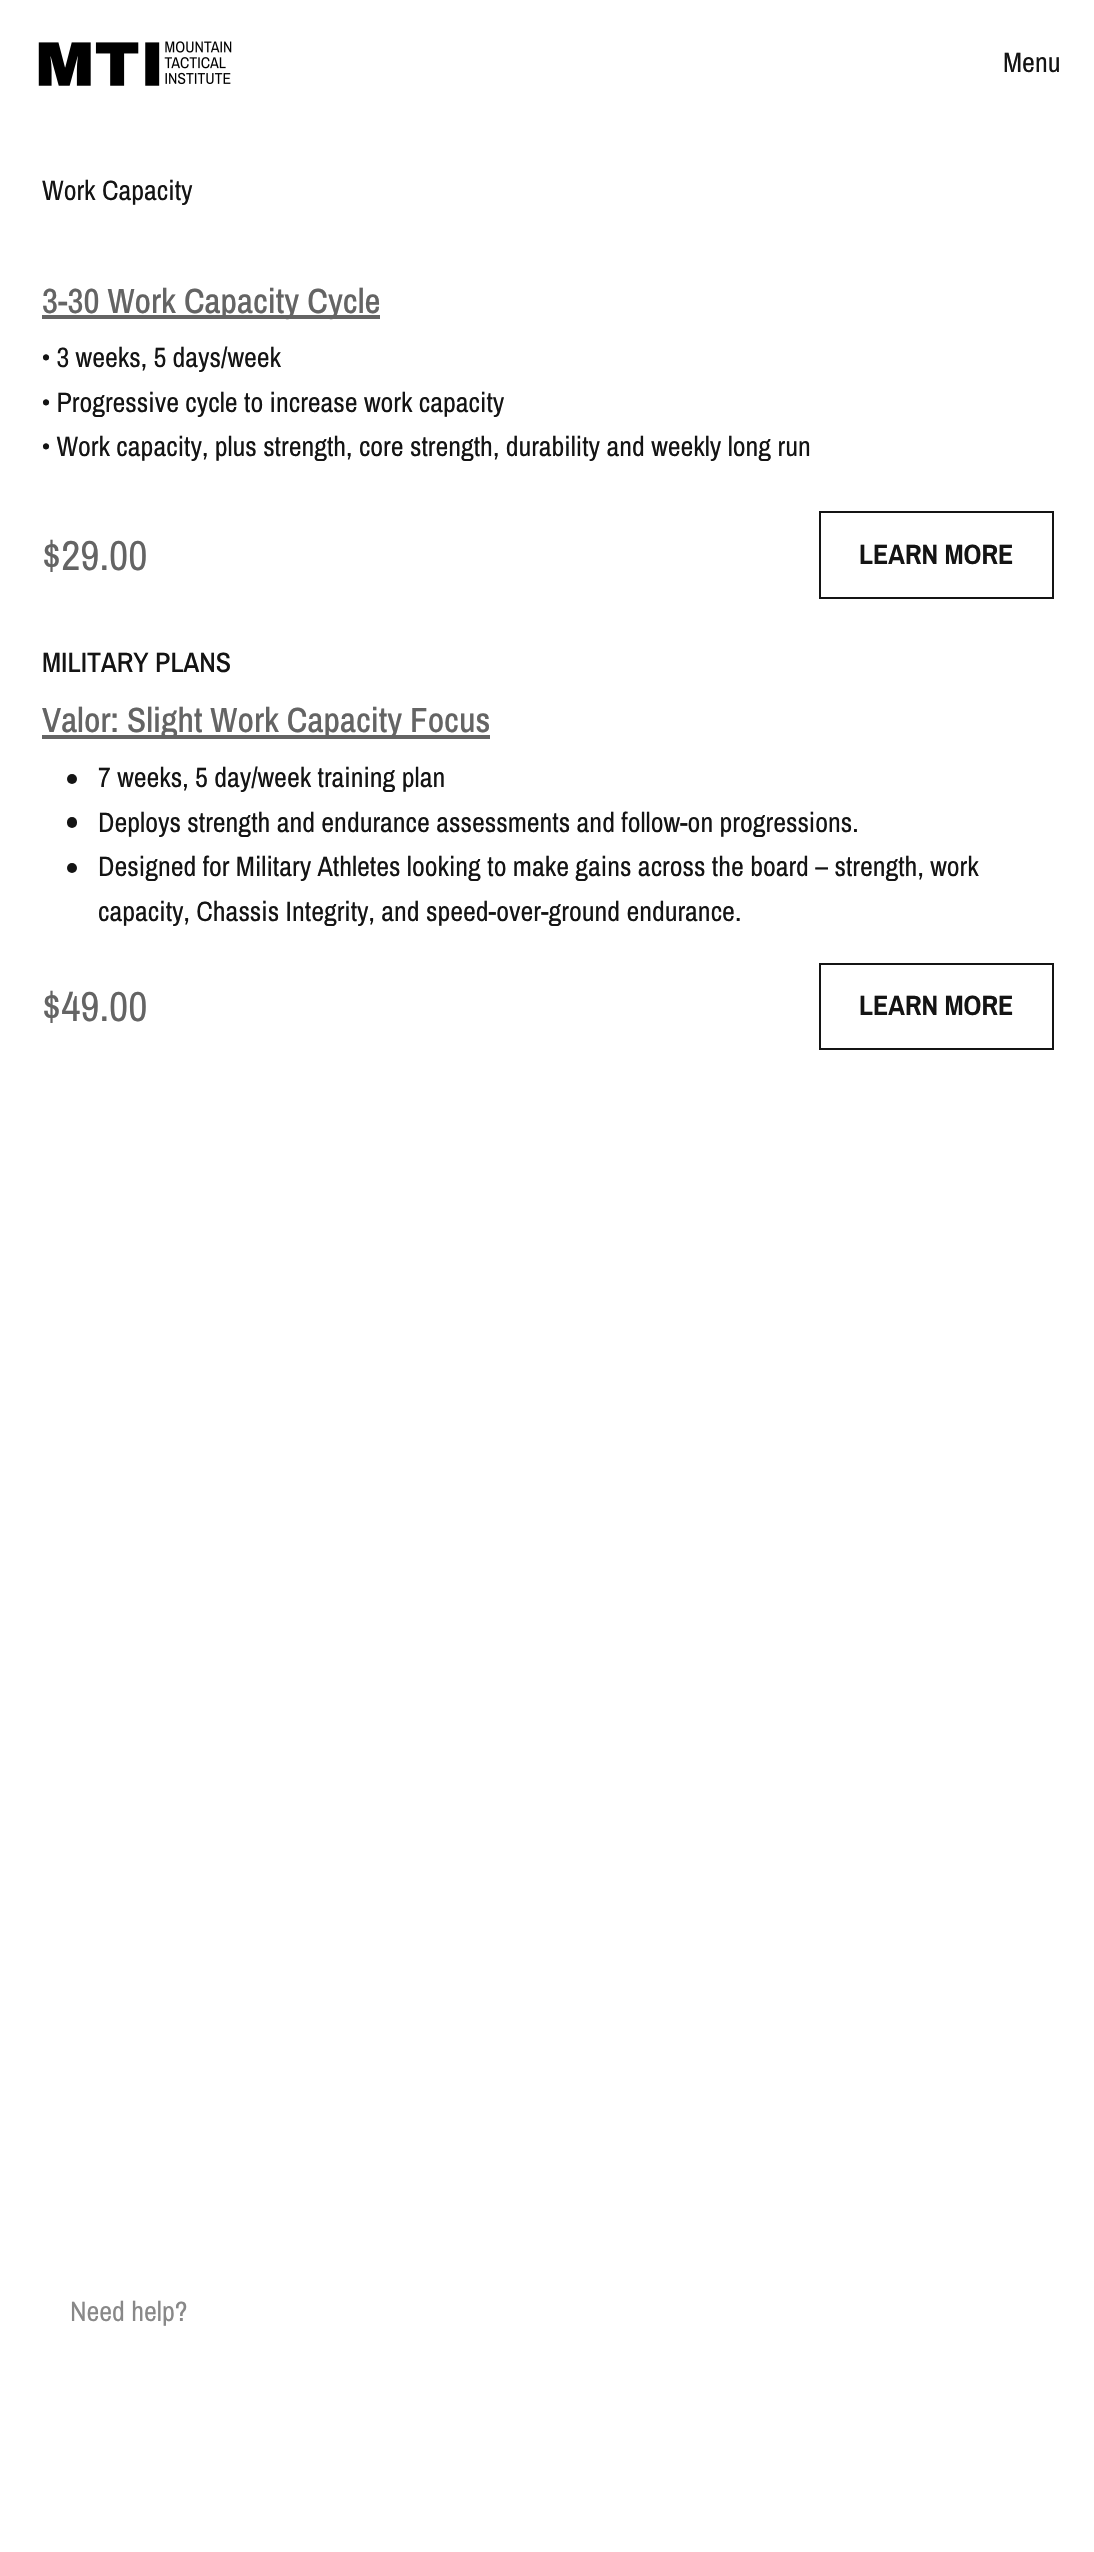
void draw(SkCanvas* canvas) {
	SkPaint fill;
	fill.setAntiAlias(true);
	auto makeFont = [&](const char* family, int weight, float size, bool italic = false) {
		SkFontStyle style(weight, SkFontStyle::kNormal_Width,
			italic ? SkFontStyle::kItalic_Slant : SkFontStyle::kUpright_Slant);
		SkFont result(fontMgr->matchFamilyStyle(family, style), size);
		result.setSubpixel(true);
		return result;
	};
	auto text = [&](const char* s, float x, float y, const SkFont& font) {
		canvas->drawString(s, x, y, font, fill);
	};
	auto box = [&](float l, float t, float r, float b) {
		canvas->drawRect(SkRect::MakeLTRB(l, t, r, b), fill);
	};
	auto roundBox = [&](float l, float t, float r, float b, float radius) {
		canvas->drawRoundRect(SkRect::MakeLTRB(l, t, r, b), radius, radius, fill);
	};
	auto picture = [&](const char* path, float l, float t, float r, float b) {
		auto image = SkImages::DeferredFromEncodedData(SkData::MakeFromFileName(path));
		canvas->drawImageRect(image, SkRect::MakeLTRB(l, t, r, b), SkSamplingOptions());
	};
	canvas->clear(0xFFFFFFFF);
	picture("image0.png", 38, 41, 232, 86);
	fill.setColor(0xFF646464);
	box(42, 315, 380, 319);
	fill.setStyle(SkPaint::kStroke_Style);
	fill.setStrokeWidth(2);
	fill.setColor(0xFF141414);
	canvas->drawRect(SkRect::MakeLTRB(820, 512, 1053, 598), fill);
	fill.setStyle(SkPaint::kFill_Style);
	fill.setColor(0xFF646464);
	box(42, 735, 490, 739);
	fill.setColor(0xFF141414);
	canvas->drawCircle(72, 779, 5, fill);
	roundBox(67, 817, 77, 828, 5);
	canvas->drawCircle(72, 868, 5, fill);
	fill.setStyle(SkPaint::kStroke_Style);
	canvas->drawRect(SkRect::MakeLTRB(820, 964, 1053, 1049), fill);
	auto font1 = makeFont("Archivo Narrow", 400, 28);
	fill.setStyle(SkPaint::kFill_Style);
	text("Menu", 1003, 72, font1);
	text("Work Capacity", 42, 200, font1);
	auto font2 = makeFont("Archivo Narrow", 500, 35);
	fill.setColor(0xFF646464);
	text("3-30 Work Capacity Cycle", 42, 313, font2);
	fill.setColor(0xFF141414);
	text("• 3 weeks, 5 days/week", 42, 367, font1);
	text("• Progressive cycle to increase work capacity", 42, 412, font1);
	text("• Work capacity, plus strength, core strength, durability and weekly long run", 42, 456, font1);
	auto font3 = makeFont("Archivo Narrow", 400, 42);
	fill.setColor(0xFF646464);
	text("$29.00", 42, 570, font3);
	auto font4 = makeFont("Archivo Narrow", 700, 28);
	fill.setColor(0xFF141414);
	text("LEARN MORE", 859, 564, font4);
	auto font5 = makeFont("Archivo Narrow", 500, 28);
	text("MILITARY PLANS", 42, 672, font5);
	fill.setColor(0xFF646464);
	text("Valor: Slight Work Capacity Focus", 42, 732, font2);
	fill.setColor(0xFF141414);
	text("7 weeks, 5 day/week training plan", 98, 787, font1);
	text("Deploys strength and endurance assessments and follow-on progressions.", 98, 832, font1);
	text("Designed for Military Athletes looking to make gains across the board – strength, work", 98, 876, font1);
	text("capacity, Chassis Integrity, and speed-over-ground endurance.", 98, 921, font1);
	fill.setColor(0xFF646464);
	text("$49.00", 42, 1021, font3);
	fill.setColor(0xFF141414);
	text("LEARN MORE", 859, 1015, font4);
	fill.setColor(0xFF888888);
	text("Need help?", 70, 2321, font1);
}
